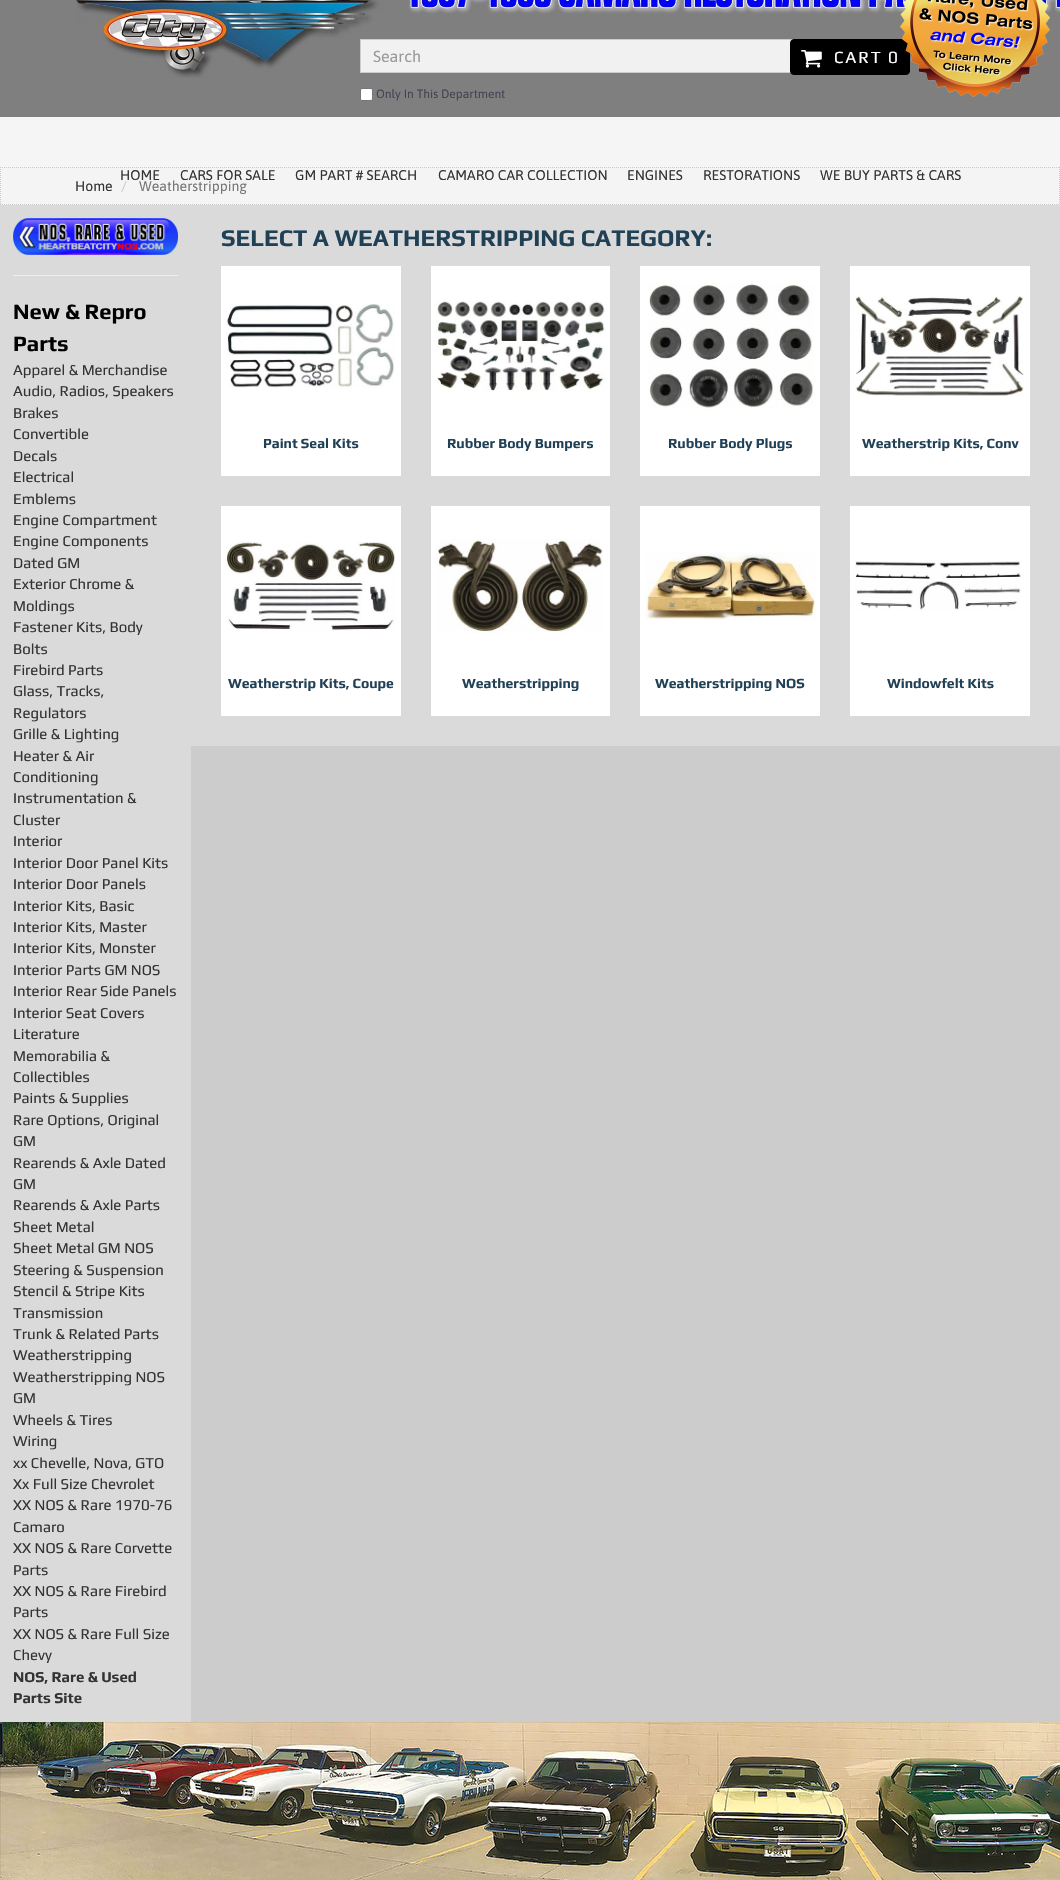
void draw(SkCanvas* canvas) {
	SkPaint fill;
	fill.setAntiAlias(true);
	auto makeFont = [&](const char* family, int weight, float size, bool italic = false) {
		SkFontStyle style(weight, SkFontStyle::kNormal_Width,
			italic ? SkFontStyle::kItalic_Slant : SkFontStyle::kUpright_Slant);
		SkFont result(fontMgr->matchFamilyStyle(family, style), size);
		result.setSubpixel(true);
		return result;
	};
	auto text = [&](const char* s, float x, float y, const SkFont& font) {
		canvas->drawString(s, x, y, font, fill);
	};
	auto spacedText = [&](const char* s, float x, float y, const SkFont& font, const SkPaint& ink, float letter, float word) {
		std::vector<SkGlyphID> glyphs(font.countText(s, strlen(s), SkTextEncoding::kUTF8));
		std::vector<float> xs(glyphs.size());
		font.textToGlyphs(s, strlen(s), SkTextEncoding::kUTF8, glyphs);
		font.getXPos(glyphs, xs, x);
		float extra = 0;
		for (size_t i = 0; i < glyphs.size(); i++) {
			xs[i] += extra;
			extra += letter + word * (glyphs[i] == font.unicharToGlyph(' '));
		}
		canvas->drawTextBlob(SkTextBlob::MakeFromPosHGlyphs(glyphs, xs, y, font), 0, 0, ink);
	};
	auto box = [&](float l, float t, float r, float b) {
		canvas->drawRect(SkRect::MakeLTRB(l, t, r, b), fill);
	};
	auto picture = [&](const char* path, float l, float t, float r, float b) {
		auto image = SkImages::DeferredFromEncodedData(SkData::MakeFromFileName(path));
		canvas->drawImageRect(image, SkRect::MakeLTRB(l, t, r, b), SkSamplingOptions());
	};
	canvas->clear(0xFF7F7F7F);
	picture("image0.png", 76, 0, 1060, 78);
	fill.setColor(0xFFF1F1F1);
	box(361, 40, 792, 72);
	fill.setStyle(SkPaint::kStroke_Style);
	fill.setStrokeWidth(1);
	fill.setColor(0xFFCCCCCC);
	canvas->drawRect(SkRect::MakeLTRB(360.5f, 39.5f, 899.5f, 72.5f), fill);
	fill.setStyle(SkPaint::kFill_Style);
	fill.setColor(0xFFFFFFFF);
	canvas->drawRoundRect(SkRect::MakeLTRB(360.5f, 88.5f, 372.5f, 100.5f), 1.5f, 1.5f, fill);
	fill.setStyle(SkPaint::kStroke_Style);
	fill.setColor(0xFF767676);
	canvas->drawRoundRect(SkRect::MakeLTRB(360.5f, 88.5f, 372.5f, 100.5f), 1.5f, 1.5f, fill);
	fill.setStyle(SkPaint::kFill_Style);
	fill.setColor(0xFF000000);
	canvas->drawRoundRect(SkRect::MakeLTRB(790.5f, 39.5f, 909.5f, 74.5f), 3.5f, 3.5f, fill);
	fill.setStyle(SkPaint::kStroke_Style);
	canvas->drawRoundRect(SkRect::MakeLTRB(790.5f, 39.5f, 909.5f, 74.5f), 3.5f, 3.5f, fill);
	picture("image1.png", 801, 50, 822, 68);
	picture("image2.png", 900, 0, 1050, 97);
	fill.setStyle(SkPaint::kFill_Style);
	fill.setColor(0xFFF5F5F5);
	box(0, 117, 1060, 167);
	fill.setColor(0xFFF4F4F4);
	box(0, 167, 1060, 205);
	fill.setStyle(SkPaint::kStroke_Style);
	fill.setColor(0xFFCCCCCC);
	fill.setPathEffect(SkDashPathEffect::Make({{1, 1}}, 0));
	canvas->drawPath(SkPathBuilder().moveTo(0, 167.5f).lineTo(1060, 167.5f).detach(), fill);
	fill.setPathEffect(nullptr);
	fill.setPathEffect(SkDashPathEffect::Make({{1, 1}}, 0));
	canvas->drawPath(SkPathBuilder().moveTo(1059.5f, 167).lineTo(1059.5f, 205).detach(), fill);
	fill.setPathEffect(nullptr);
	fill.setPathEffect(SkDashPathEffect::Make({{1, 1}}, 0));
	canvas->drawPath(SkPathBuilder().moveTo(0, 204.5f).lineTo(1060, 204.5f).detach(), fill);
	fill.setPathEffect(nullptr);
	fill.setPathEffect(SkDashPathEffect::Make({{1, 1}}, 0));
	canvas->drawPath(SkPathBuilder().moveTo(0.5f, 167).lineTo(0.5f, 205).detach(), fill);
	fill.setPathEffect(nullptr);
	fill.setStyle(SkPaint::kFill_Style);
	box(191, 746, 1060, 1722);
	fill.setColor(0xFFDADADA);
	box(0, 205, 191, 1722);
	picture("image3.png", 13, 218, 178, 255);
	fill.setColor(0xFFEEEEEE);
	box(13, 275, 178, 276);
	fill.setColor(0xFFDADADA);
	box(191, 205, 1060, 746);
	fill.setColor(0xFFFFFFFF);
	box(221, 266, 401, 476);
	picture("image4.png", 226, 304, 395, 388);
	box(431, 266, 610, 476);
	picture("image5.png", 436, 301, 605, 391);
	box(640, 266, 820, 476);
	picture("image6.png", 648, 283, 814, 409);
	box(850, 266, 1030, 476);
	picture("image7.png", 855, 296, 1024, 396);
	box(221, 506, 401, 716);
	picture("image8.png", 226, 542, 395, 631);
	box(431, 506, 610, 716);
	picture("image9.png", 436, 539, 603, 633);
	box(640, 506, 820, 716);
	picture("image10.png", 645, 551, 815, 620);
	box(850, 506, 1030, 716);
	picture("image11.png", 855, 561, 1021, 610);
	picture("image12.png", 0, 1722, 1060, 1880);
	auto font1 = makeFont("Asap", 400, 16);
	fill.setColor(0xFF999999);
	text("Search", 373, 62, font1);
	auto font2 = makeFont("Asap", 400, 12);
	fill.setColor(0xFF434356);
	text("Only In This Department", 376, 98, font2);
	auto font3 = makeFont("Play", 400, 17);
	fill.setColor(0xFFFFFFFF);
	spacedText("CART 0", 834, 63, font3, fill, 1.75f, 0);
	auto font4 = makeFont("Asap", 400, 14);
	fill.setColor(0xFF333333);
	text("HOME", 120, 180, font4);
	text("CARS FOR SALE", 180, 180, font4);
	text("GM PART # SEARCH", 295, 180, font4);
	text("CAMARO CAR COLLECTION", 438, 180, font4);
	text("ENGINES", 627, 180, font4);
	text("RESTORATIONS", 703, 180, font4);
	text("WE BUY PARTS & CARS", 820, 180, font4);
	text("Home", 75, 191, font4);
	fill.setColor(0xFFCCCCCC);
	text("/", 121, 191, font4);
	fill.setColor(0xFF777777);
	text("Weatherstripping", 139, 191, font4);
	auto font5 = makeFont("Play", 700, 22);
	fill.setColor(0xFF000000);
	text("New & Repro", 13, 319, font5);
	text("Parts", 13, 351, font5);
	auto font6 = makeFont("Play", 400, 15);
	fill.setColor(0xFF333333);
	text("Apparel & Merchandise", 13, 375, font6);
	text("Audio, Radios, Speakers", 13, 396, font6);
	text("Brakes", 13, 418, font6);
	text("Convertible", 13, 439, font6);
	text("Decals", 13, 461, font6);
	text("Electrical", 13, 482, font6);
	text("Emblems", 13, 504, font6);
	text("Engine Compartment", 13, 525, font6);
	text("Engine Components", 13, 546, font6);
	text("Dated GM", 13, 568, font6);
	text("Exterior Chrome &", 13, 589, font6);
	text("Moldings", 13, 611, font6);
	text("Fastener Kits, Body", 13, 632, font6);
	text("Bolts", 13, 654, font6);
	text("Firebird Parts", 13, 675, font6);
	text("Glass, Tracks,", 13, 696, font6);
	text("Regulators", 13, 718, font6);
	text("Grille & Lighting", 13, 739, font6);
	text("Heater & Air", 13, 761, font6);
	text("Conditioning", 13, 782, font6);
	text("Instrumentation &", 13, 803, font6);
	text("Cluster", 13, 825, font6);
	text("Interior", 13, 846, font6);
	text("Interior Door Panel Kits", 13, 868, font6);
	text("Interior Door Panels", 13, 889, font6);
	text("Interior Kits, Basic", 13, 911, font6);
	text("Interior Kits, Master", 13, 932, font6);
	text("Interior Kits, Monster", 13, 953, font6);
	text("Interior Parts GM NOS", 13, 975, font6);
	text("Interior Rear Side Panels", 13, 996, font6);
	text("Interior Seat Covers", 13, 1018, font6);
	text("Literature", 13, 1039, font6);
	text("Memorabilia &", 13, 1061, font6);
	text("Collectibles", 13, 1082, font6);
	text("Paints & Supplies", 13, 1103, font6);
	text("Rare Options, Original", 13, 1125, font6);
	text("GM", 13, 1146, font6);
	text("Rearends & Axle Dated", 13, 1168, font6);
	text("GM", 13, 1189, font6);
	text("Rearends & Axle Parts", 13, 1210, font6);
	text("Sheet Metal", 13, 1232, font6);
	text("Sheet Metal GM NOS", 13, 1253, font6);
	text("Steering & Suspension", 13, 1275, font6);
	text("Stencil & Stripe Kits", 13, 1296, font6);
	text("Transmission", 13, 1318, font6);
	text("Trunk & Related Parts", 13, 1339, font6);
	text("Weatherstripping", 13, 1360, font6);
	text("Weatherstripping NOS", 13, 1382, font6);
	text("GM", 13, 1403, font6);
	text("Wheels & Tires", 13, 1425, font6);
	text("Wiring", 13, 1446, font6);
	text("xx Chevelle, Nova, GTO", 13, 1468, font6);
	text("Xx Full Size Chevrolet", 13, 1489, font6);
	text("XX NOS & Rare 1970-76", 13, 1510, font6);
	text("Camaro", 13, 1532, font6);
	text("XX NOS & Rare Corvette", 13, 1553, font6);
	text("Parts", 13, 1575, font6);
	text("XX NOS & Rare Firebird", 13, 1596, font6);
	text("Parts", 13, 1617, font6);
	text("XX NOS & Rare Full Size", 13, 1639, font6);
	text("Chevy", 13, 1660, font6);
	auto font7 = makeFont("Play", 700, 15);
	text("NOS, Rare & Used", 13, 1682, font7);
	text("Parts Site", 13, 1703, font7);
	auto font8 = makeFont("Play", 700, 24);
	fill.setColor(0xFF204056);
	text("SELECT A WEATHERSTRIPPING CATEGORY:", 221, 246, font8);
	auto font9 = makeFont("Play", 700, 14);
	text("Paint Seal Kits", 263, 448, font9);
	text("Rubber Body Bumpers", 447, 448, font9);
	text("Rubber Body Plugs", 668, 448, font9);
	text("Weatherstrip Kits, Conv", 862, 448, font9);
	text("Weatherstrip Kits, Coupe", 228, 688, font9);
	text("Weatherstripping", 462, 688, font9);
	text("Weatherstripping NOS", 655, 688, font9);
	text("Windowfelt Kits", 887, 688, font9);
}
